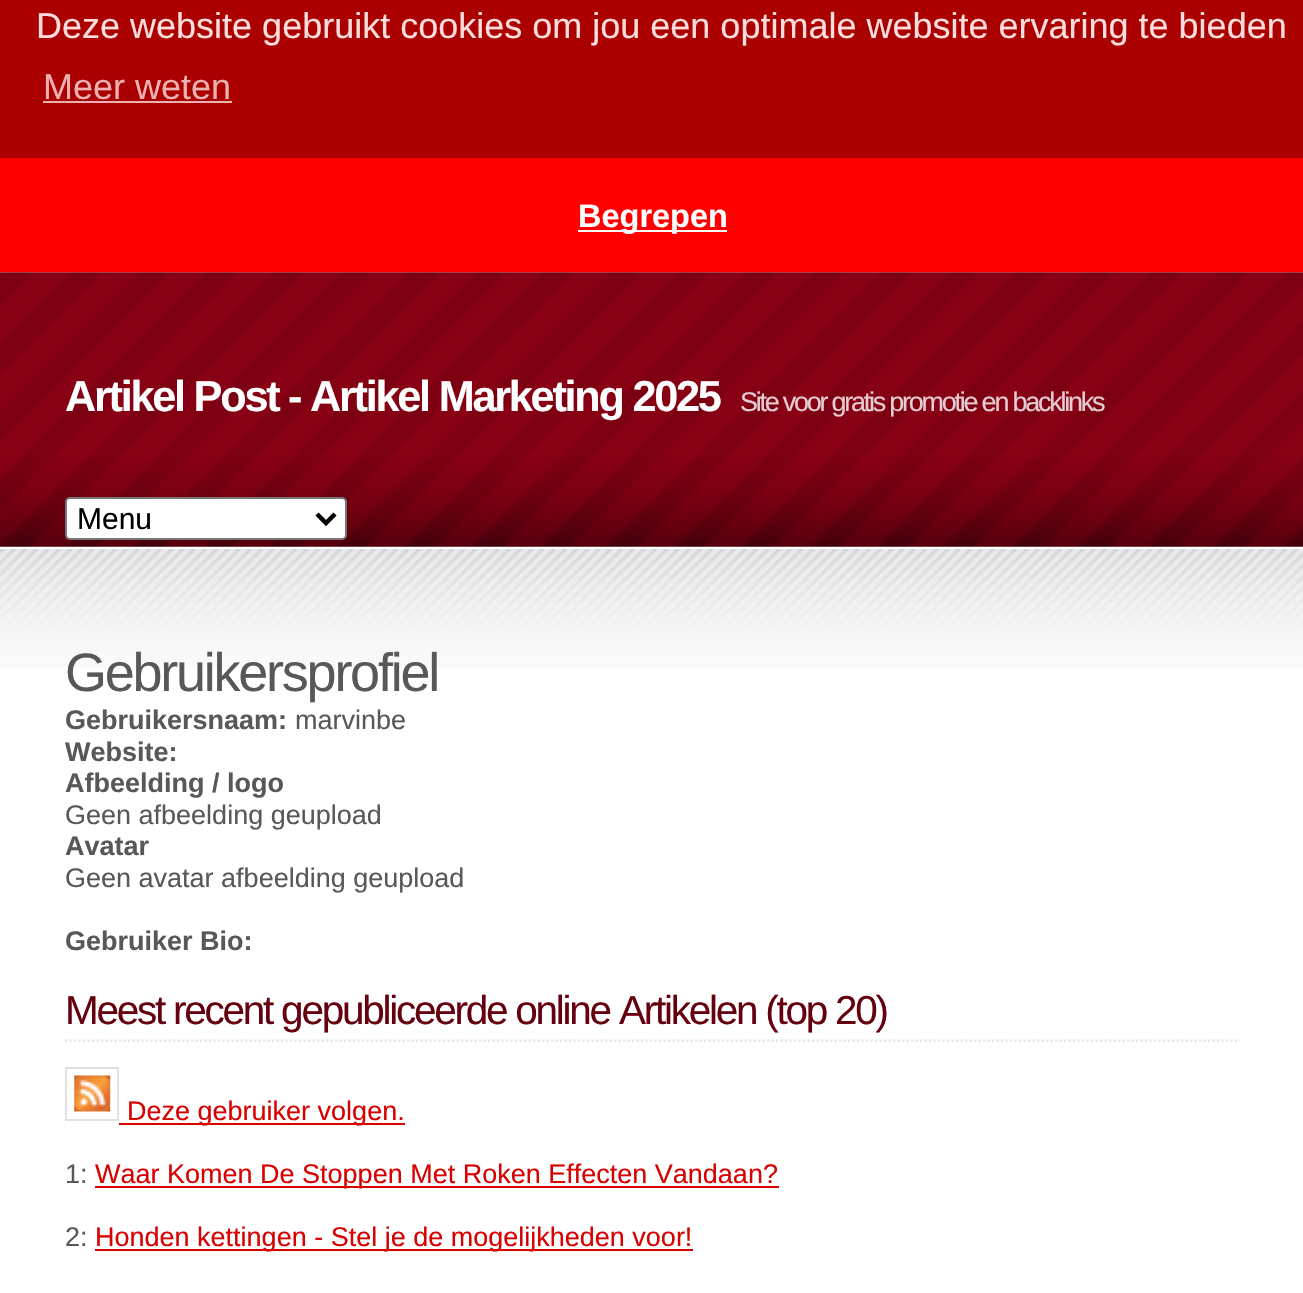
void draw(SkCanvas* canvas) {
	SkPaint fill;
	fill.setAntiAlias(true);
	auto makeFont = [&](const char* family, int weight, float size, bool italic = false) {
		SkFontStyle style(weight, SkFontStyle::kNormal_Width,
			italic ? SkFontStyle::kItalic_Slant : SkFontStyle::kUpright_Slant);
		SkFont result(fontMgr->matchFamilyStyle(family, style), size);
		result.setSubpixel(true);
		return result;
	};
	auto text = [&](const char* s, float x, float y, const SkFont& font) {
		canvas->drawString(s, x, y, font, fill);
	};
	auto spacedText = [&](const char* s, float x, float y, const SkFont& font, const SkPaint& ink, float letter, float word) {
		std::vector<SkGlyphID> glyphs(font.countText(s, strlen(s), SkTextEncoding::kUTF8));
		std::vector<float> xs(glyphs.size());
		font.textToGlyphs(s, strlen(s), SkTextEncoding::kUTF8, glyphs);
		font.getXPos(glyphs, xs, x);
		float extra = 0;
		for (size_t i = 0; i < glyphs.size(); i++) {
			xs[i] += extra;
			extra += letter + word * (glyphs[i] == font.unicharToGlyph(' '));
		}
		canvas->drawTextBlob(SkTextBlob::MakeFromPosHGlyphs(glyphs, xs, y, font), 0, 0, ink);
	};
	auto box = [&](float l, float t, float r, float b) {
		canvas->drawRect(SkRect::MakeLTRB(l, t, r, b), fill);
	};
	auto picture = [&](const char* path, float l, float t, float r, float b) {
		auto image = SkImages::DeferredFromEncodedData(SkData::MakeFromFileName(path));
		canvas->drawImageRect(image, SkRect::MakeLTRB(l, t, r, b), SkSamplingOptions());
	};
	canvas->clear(0xFFFFFFFF);
	fill.setColor(0xFFAA0000);
	box(0, 0, 1303, 158);
	fill.setColor(0xFFEEB1B1);
	box(43, 101, 232, 103);
	fill.setColor(0xFFFF0000);
	box(0, 158, 1303, 272);
	fill.setColor(0xFFFFFFFF);
	box(578, 230, 727, 232);
	picture("image0.png", 0, 272, 1303, 547);
	canvas->drawRoundRect(SkRect::MakeLTRB(66, 498, 346, 539), 4, 4, fill);
	fill.setStyle(SkPaint::kStroke_Style);
	fill.setStrokeWidth(2);
	fill.setColor(0xFF767676);
	canvas->drawRoundRect(SkRect::MakeLTRB(66, 498, 346, 539), 4, 4, fill);
	fill.setStrokeWidth(4.5f);
	fill.setColor(0xFF000000);
	canvas->drawPath(SkPathBuilder().moveTo(317, 514).lineTo(326, 523).lineTo(335, 514).detach(), fill);
	picture("image1.png", 0, 549, 1303, 668);
	fill.setStrokeWidth(2.2f);
	fill.setColor(0xFFE1E1E1);
	fill.setPathEffect(SkDashPathEffect::Make({{2.25f, 2.25f}}, 0));
	canvas->drawPath(SkPathBuilder().moveTo(65, 1040.5f).lineTo(1240, 1040.5f).detach(), fill);
	fill.setPathEffect(nullptr);
	fill.setStrokeWidth(2);
	canvas->drawRect(SkRect::MakeLTRB(66, 1068, 118, 1120), fill);
	picture("image2.png", 74, 1075, 111, 1112);
	fill.setStyle(SkPaint::kFill_Style);
	fill.setColor(0xFFD90000);
	box(119, 1123, 405, 1125);
	box(95, 1186, 779, 1188);
	box(95, 1249, 693, 1251);
	auto font1 = makeFont("Liberation Sans", 400, 36);
	fill.setColor(0xFFFFDDDD);
	text("Deze website gebruikt cookies om jou een optimale website ervaring te bieden", 36, 38, font1);
	fill.setColor(0xFFEEB1B1);
	text("Meer weten", 43, 99, font1);
	auto font2 = makeFont("Liberation Sans", 700, 32.5f);
	fill.setColor(0xFFFFFFFF);
	text("Begrepen", 578, 227, font2);
	auto font3 = makeFont("Liberation Sans", 700, 43.25f);
	spacedText("Artikel Post - Artikel Marketing 2025", 65, 411, font3, fill, -2.25f, 0);
	auto font4 = makeFont("Liberation Sans", 400, 27);
	fill.setColor(0xFFE5CCD0);
	spacedText("Site voor gratis promotie en backlinks", 740, 411, font4, fill, -2.25f, 0);
	auto font5 = makeFont("Liberation Sans", 400, 30);
	fill.setColor(0xFF000000);
	text("Menu", 77, 529, font5);
	auto font6 = makeFont("Liberation Sans", 400, 54);
	fill.setColor(0xFF585858);
	spacedText("Gebruikersprofiel", 65, 691, font6, fill, -2.25f, 0);
	auto font7 = makeFont("Liberation Sans", 700, 27);
	text("Gebruikersnaam:", 65, 729, font7);
	text("marvinbe", 295, 729, font4);
	text("Website:", 65, 761, font7);
	text("Afbeelding / logo", 65, 792, font7);
	text("Geen afbeelding geupload", 65, 824, font4);
	text("Avatar", 65, 855, font7);
	text("Geen avatar afbeelding geupload", 65, 887, font4);
	text("Gebruiker Bio:", 65, 950, font7);
	auto font8 = makeFont("Liberation Sans", 400, 40.5f);
	fill.setColor(0xFF66000F);
	spacedText("Meest recent gepubliceerde online Artikelen (top 20)", 65, 1024, font8, fill, -2.25f, 0);
	fill.setColor(0xFFD90000);
	text("Deze gebruiker volgen.", 127, 1120, font4);
	fill.setColor(0xFF585858);
	text("1:", 65, 1183, font4);
	fill.setColor(0xFFD90000);
	text("Waar Komen De Stoppen Met Roken Effecten Vandaan?", 95, 1183, font4);
	fill.setColor(0xFF585858);
	text("2:", 65, 1246, font4);
	fill.setColor(0xFFD90000);
	text("Honden kettingen - Stel je de mogelijkheden voor!", 95, 1246, font4);
}
